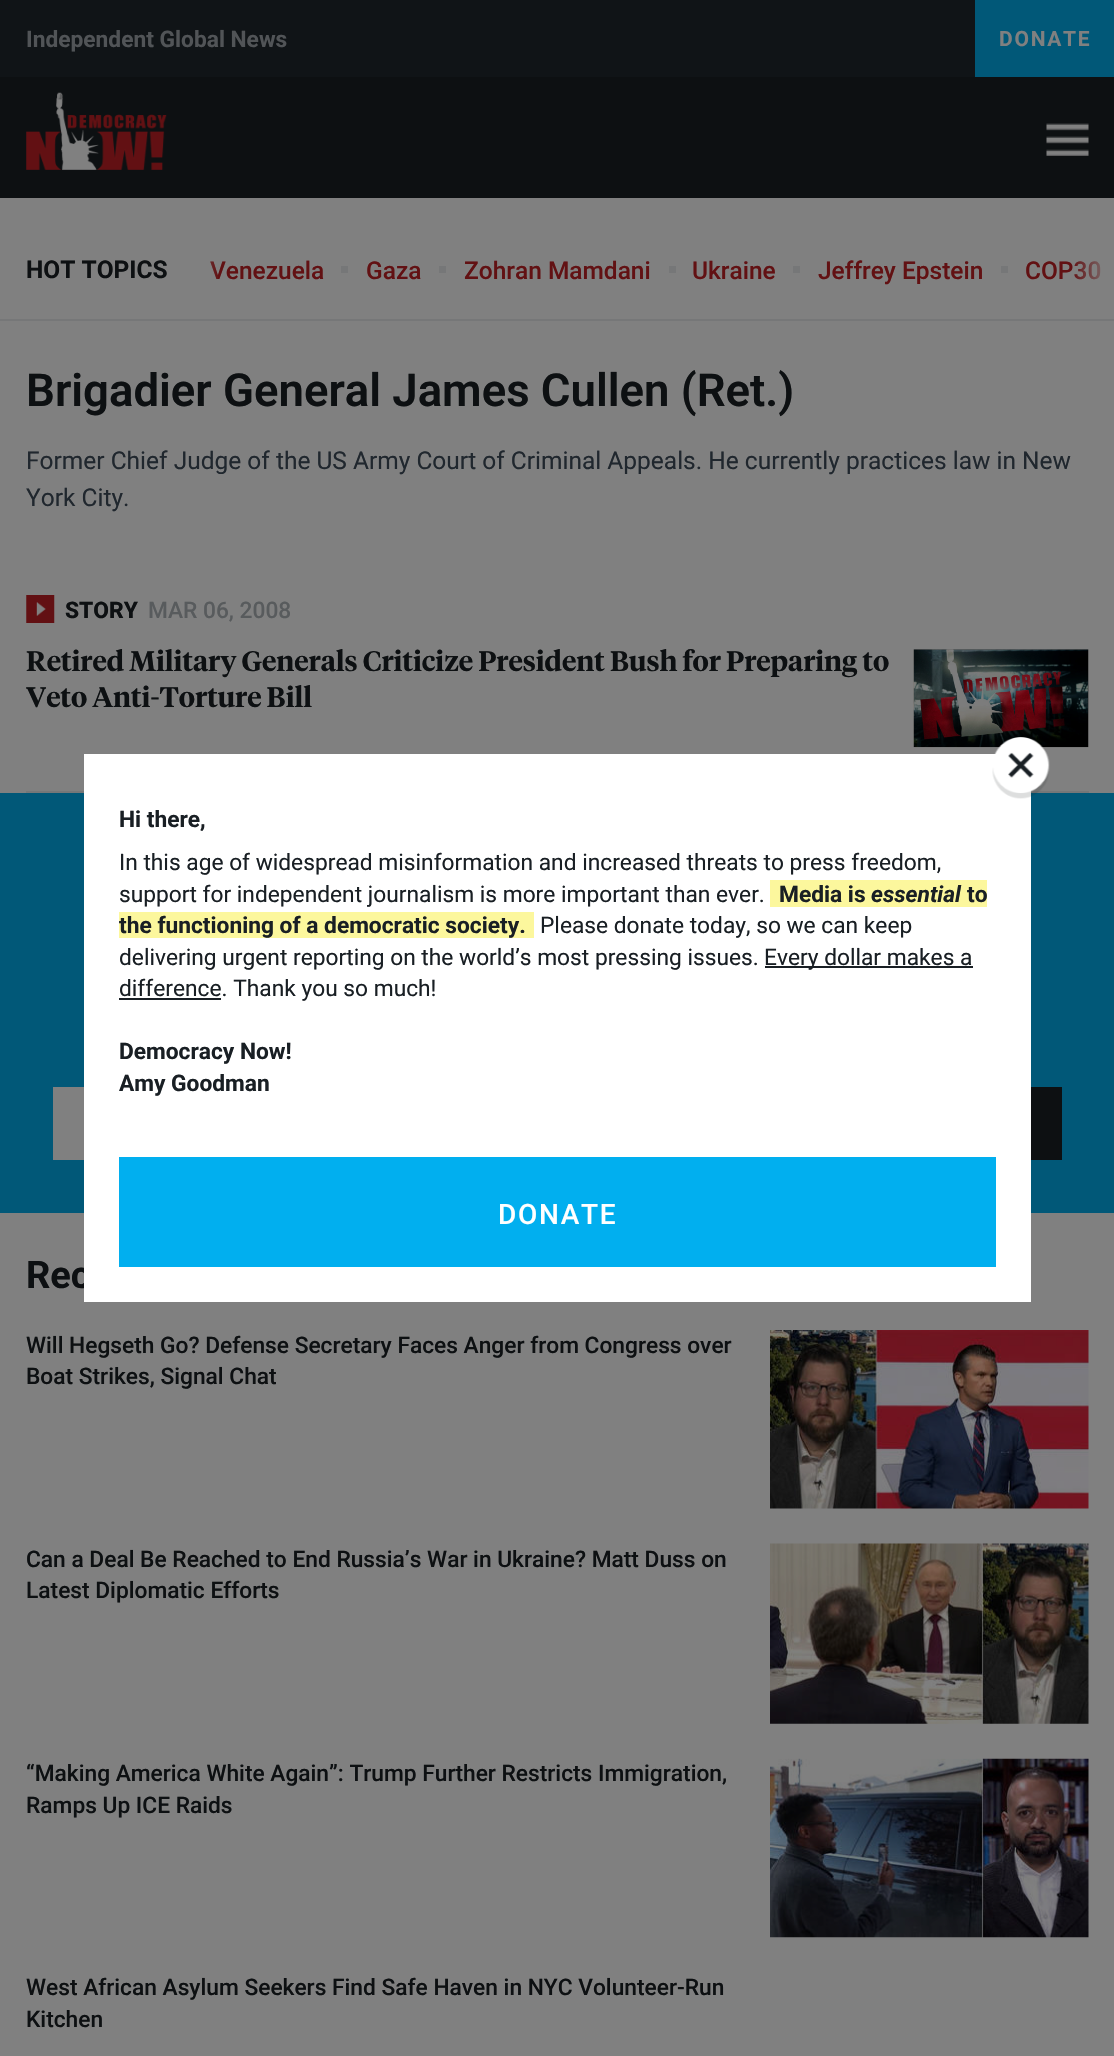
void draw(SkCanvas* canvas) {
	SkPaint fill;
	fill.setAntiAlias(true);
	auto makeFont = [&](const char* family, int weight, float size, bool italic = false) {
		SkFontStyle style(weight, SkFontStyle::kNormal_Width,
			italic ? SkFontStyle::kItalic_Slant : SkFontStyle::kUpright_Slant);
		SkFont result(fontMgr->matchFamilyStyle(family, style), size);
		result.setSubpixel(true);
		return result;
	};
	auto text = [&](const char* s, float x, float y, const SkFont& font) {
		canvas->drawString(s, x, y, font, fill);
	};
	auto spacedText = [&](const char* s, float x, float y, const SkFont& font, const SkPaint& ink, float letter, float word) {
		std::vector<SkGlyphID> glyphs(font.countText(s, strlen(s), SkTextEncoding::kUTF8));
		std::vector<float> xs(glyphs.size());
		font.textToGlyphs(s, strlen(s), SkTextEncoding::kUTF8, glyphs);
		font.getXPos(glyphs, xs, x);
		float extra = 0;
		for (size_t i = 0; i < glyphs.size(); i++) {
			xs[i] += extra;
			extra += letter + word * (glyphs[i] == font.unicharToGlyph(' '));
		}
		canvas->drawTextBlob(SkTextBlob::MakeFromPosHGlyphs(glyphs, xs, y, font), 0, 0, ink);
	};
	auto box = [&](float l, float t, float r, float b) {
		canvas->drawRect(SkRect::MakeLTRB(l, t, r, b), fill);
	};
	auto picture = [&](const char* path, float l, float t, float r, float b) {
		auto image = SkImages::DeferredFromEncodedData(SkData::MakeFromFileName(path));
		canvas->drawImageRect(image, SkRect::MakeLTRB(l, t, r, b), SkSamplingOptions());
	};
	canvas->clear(0xFF808080);
	fill.setColor(0xFF0D1012);
	box(0, 77, 1114, 198);
	fill.setColor(0xFF101417);
	box(0, 0, 975, 77);
	fill.setColor(0xFF015878);
	box(975, 0, 1114, 77);
	picture("image0.png", 26, 92, 167, 170);
	picture("image1.png", 1046, 123, 1089, 156);
	fill.setColor(0xFF767778);
	box(0, 319, 1114, 321);
	box(341, 266, 348, 273);
	box(439, 266, 446, 273);
	box(669, 266, 676, 273);
	box(793, 266, 800, 273);
	box(1001, 266, 1008, 273);
	box(26, 791, 1089, 793);
	picture("image2.png", 26, 595, 55, 623);
	picture("image3.png", 913, 649, 1089, 748);
	fill.setColor(0xFF015878);
	box(0, 793, 1114, 1213);
	fill.setColor(0xFF808080);
	box(53, 1087, 84, 1160);
	fill.setColor(0xFF0D1012);
	box(1031, 1087, 1062, 1160);
	picture("image4.png", 770, 1330, 1089, 1509);
	picture("image5.png", 770, 1543, 1089, 1724);
	picture("image6.png", 770, 1758, 1089, 1938);
	auto font1 = makeFont("Roboto", 700, 22.75f);
	fill.setColor(0xFF515457);
	text("Independent Global News", 26, 47, font1);
	auto font2 = makeFont("Roboto", 700, 21);
	fill.setColor(0xFF808080);
	spacedText("DONATE", 999, 46, font2, fill, 1.75f, 0);
	auto font3 = makeFont("Roboto", 700, 24.5f);
	fill.setColor(0xFF0D1012);
	text("HOT TOPICS", 26, 278, font3);
	auto font4 = makeFont("Roboto", 500, 24.5f);
	fill.setColor(0xFF621113);
	text("Venezuela", 210, 279, font4);
	{
		const SkColor colors[] = {0xFF808080, 0x00808080};
		const float stops[] = {0, 1};
		const SkPoint ends[] = {{175, 271}, {219, 271}};
		fill.setShader(SkGradientShader::MakeLinear(ends, colors, stops, 2, SkTileMode::kClamp));
		fill.setAlpha(255);
	}
	box(210, 261, 218, 279);
	fill.setShader(nullptr);
	fill.setColor(0xFF621113);
	text("Gaza", 366, 279, font4);
	text("Zohran Mamdani", 464, 279, font4);
	text("Ukraine", 692, 279, font4);
	text("Jeffrey Epstein", 818, 279, font4);
	text("COP30", 1025, 279, font4);
	{
		const SkColor colors[] = {0xFF808080, 0x00808080};
		const float stops[] = {0, 1};
		const SkPoint ends[] = {{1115, 268}, {1071, 268}};
		fill.setShader(SkGradientShader::MakeLinear(ends, colors, stops, 2, SkTileMode::kClamp));
		fill.setAlpha(255);
	}
	box(1072, 261, 1101, 280);
	auto font5 = makeFont("Roboto", 600, 45.5f);
	fill.setShader(nullptr);
	fill.setColor(0xFF0D1012);
	text("Brigadier General James Cullen (Ret.)", 26, 406, font5);
	auto font6 = makeFont("Roboto", 400, 24.5f);
	fill.setColor(0xFF20272E);
	text("Former Chief Judge of the US Army Court of Criminal Appeals. He currently practices law in New", 26, 469, font6);
	text("York City.", 26, 506, font6);
	auto font7 = makeFont("Roboto", 800, 22.75f);
	fill.setColor(0xFF0D1012);
	text("STORY", 65, 618, font7);
	auto font8 = makeFont("Roboto", 500, 22.75f);
	fill.setColor(0xFF585B5D);
	text("MAR 06, 2008", 148, 618, font8);
	auto font9 = makeFont("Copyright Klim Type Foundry", 600, 28);
	fill.setColor(0xFF0D1012);
	text("Retired Military Generals Criticize President Bush for Preparing to", 26, 671, font9);
	text("Veto Anti-Torture Bill", 26, 707, font9);
	auto font10 = makeFont("Roboto", 700, 38);
	text("Rec", 26, 1288, font10);
	text("Will Hegseth Go? Defense Secretary Faces Anger from Congress over", 26, 1353, font8);
	text("Boat Strikes, Signal Chat", 26, 1384, font8);
	text("Can a Deal Be Reached to End Russia’s War in Ukraine? Matt Duss on", 26, 1567, font8);
	text("Latest Diplomatic Efforts", 26, 1598, font8);
	text("“Making America White Again”: Trump Further Restricts Immigration,", 26, 1781, font8);
	text("Ramps Up ICE Raids", 26, 1813, font8);
	text("West African Asylum Seekers Find Safe Haven in NYC Volunteer-Run", 26, 1995, font8);
	text("Kitchen", 26, 2027, font8);
	fill.setColor(0xFFFFFFFF);
	box(84, 754, 1031, 1302);
	picture("image7.png", 992, 737, 1050, 799);
	fill.setColor(0xFF191F24);
	text("Hi there,", 119, 827, font1);
	auto font11 = makeFont("Roboto", 400, 22.75f);
	text("In this age of widespread misinformation and increased threats to press freedom,", 119, 870, font11);
	text("support for independent journalism is more important than ever.", 119, 902, font11);
	fill.setColor(0xFFFCF79D);
	box(770, 880, 987, 907);
	fill.setColor(0xFF191F24);
	text("Media is", 779, 902, font1);
	auto font12 = makeFont("Roboto", 700, 22.75f, true);
	text("essential", 871, 902, font12);
	text("to", 967, 902, font1);
	fill.setColor(0xFFFCF79D);
	box(119, 912, 534, 938);
	fill.setColor(0xFF191F24);
	text("the functioning of a democratic society.", 119, 933, font1);
	text("Please donate today, so we can keep", 540, 933, font11);
	text("delivering urgent reporting on the world’s most pressing issues.", 119, 965, font11);
	box(765, 966, 973, 968);
	text("Every dollar makes a", 764, 965, font11);
	box(119, 998, 221, 1000);
	text("difference. Thank you so much!", 119, 996, font11);
	text("Democracy Now!", 119, 1059, font1);
	text("Amy Goodman", 119, 1091, font1);
	fill.setColor(0xFF01AFEF);
	box(119, 1157, 996, 1267);
	auto font13 = makeFont("Roboto", 500, 28);
	fill.setColor(0xFFFFFFFF);
	spacedText("DONATE", 498, 1224, font13, fill, 1.75f, 0);
}
